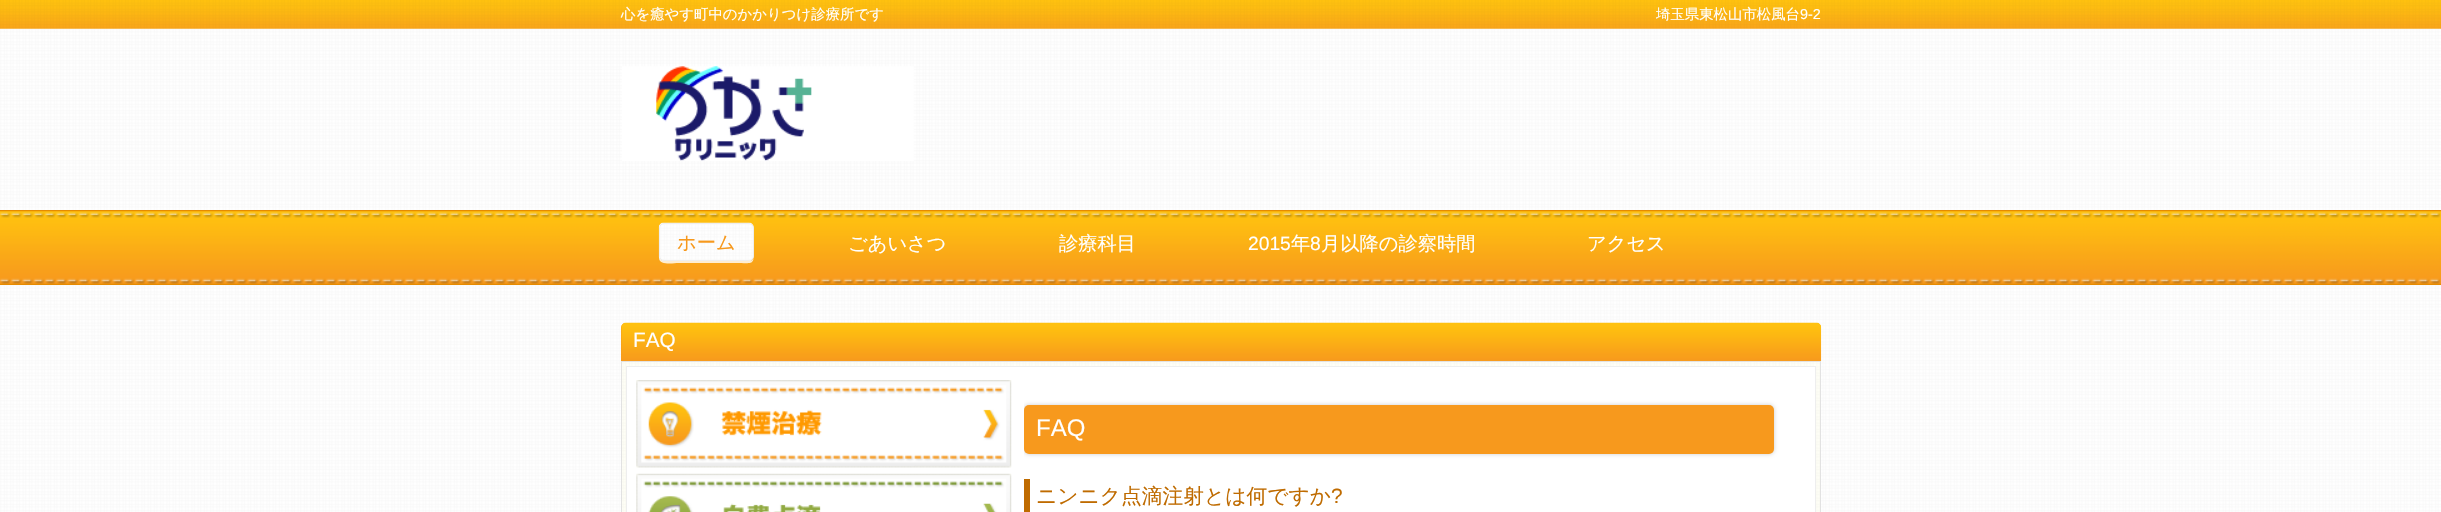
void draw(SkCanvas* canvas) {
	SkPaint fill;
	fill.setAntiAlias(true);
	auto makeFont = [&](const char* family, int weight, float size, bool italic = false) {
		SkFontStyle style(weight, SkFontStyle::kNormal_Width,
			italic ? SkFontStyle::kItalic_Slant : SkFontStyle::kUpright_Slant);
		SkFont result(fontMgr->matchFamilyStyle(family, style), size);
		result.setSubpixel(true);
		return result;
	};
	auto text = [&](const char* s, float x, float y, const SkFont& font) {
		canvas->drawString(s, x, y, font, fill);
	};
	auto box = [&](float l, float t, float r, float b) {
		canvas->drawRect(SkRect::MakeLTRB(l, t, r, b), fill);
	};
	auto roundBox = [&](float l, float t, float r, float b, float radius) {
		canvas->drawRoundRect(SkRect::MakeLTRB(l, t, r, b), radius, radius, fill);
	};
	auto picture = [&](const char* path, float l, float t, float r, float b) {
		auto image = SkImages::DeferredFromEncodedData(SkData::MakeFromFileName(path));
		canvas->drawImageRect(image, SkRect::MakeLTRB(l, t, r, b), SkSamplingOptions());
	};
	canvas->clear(0xFFFFFFFF);
	picture("image0.png", 0, 28, 2441, 512);
	picture("image1.png", 0, 0, 2441, 29);
	picture("image2.png", 622, 66, 914, 161);
	picture("image3.png", 0, 210, 2441, 285);
	fill.setColor(0xFFFEEDD1);
	canvas->drawPath(SkPathBuilder().moveTo(659, 258).cubicTo(659, 266, 675, 263, 678, 263).lineTo(735, 263).cubicTo(754, 263, 754, 266, 754, 248).lineTo(754, 227).lineTo(754, 256).cubicTo(754, 259, 752, 261, 749, 261).lineTo(664, 261).cubicTo(662, 261, 660, 260, 659, 258).close().detach(), fill);
	picture("image4.png", 658, 222, 754, 261);
	fill.setStyle(SkPaint::kStroke_Style);
	fill.setStrokeWidth(1);
	fill.setColor(0xFFEEEEEE);
	canvas->drawRoundRect(SkRect::MakeLTRB(659.5f, 223.5f, 753.5f, 260.5f), 4.5f, 4.5f, fill);
	fill.setStyle(SkPaint::kFill_Style);
	fill.setColor(0xFFF7991D);
	canvas->drawPath(SkPathBuilder().moveTo(626, 323).lineTo(1816, 323).cubicTo(1819, 323, 1821, 325, 1821, 328).lineTo(1821, 361).lineTo(621, 361).lineTo(621, 328).cubicTo(621, 325, 623, 323, 626, 323).close().detach(), fill);
	picture("image5.png", 621, 322, 1822, 361);
	picture("image6.png", 622, 362, 1820, 512);
	fill.setStyle(SkPaint::kStroke_Style);
	fill.setColor(0xFFE2E2E2);
	canvas->drawRect(SkRect::MakeLTRB(621.5f, 361.5f, 1820.5f, 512.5f), fill);
	fill.setStyle(SkPaint::kFill_Style);
	fill.setColor(0xFFFFFFFF);
	canvas->drawRect(SkRect::MakeLTRB(626.5f, 366.5f, 1815.5f, 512.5f), fill);
	fill.setStyle(SkPaint::kStroke_Style);
	fill.setColor(0xFFEEEEEE);
	canvas->drawRect(SkRect::MakeLTRB(626.5f, 366.5f, 1815.5f, 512.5f), fill);
	picture("image7.png", 636, 380, 1012, 468);
	picture("image8.png", 636, 473, 1012, 512);
	canvas->save();
	canvas->clipRect(SkRect::MakeLTRB(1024, 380, 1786, 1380));
	fill.setStyle(SkPaint::kFill_Style);
	fill.setColor(0x33000000);
	fill.setMaskFilter(SkMaskFilter::MakeBlur(kNormal_SkBlurStyle, 2));
	canvas->drawRoundRect(SkRect::MakeLTRB(1024, 405, 1774, 454), 5, 5, fill);
	fill.setMaskFilter(nullptr);
	canvas->restore();
	fill.setColor(0xFFF7991D);
	roundBox(1024, 405, 1774, 454, 5);
	fill.setColor(0xFFBF6B00);
	box(1024, 479, 1030, 512);
	auto font1 = makeFont("WenQuanYi Zen Hei", 500, 14.4f);
	fill.setColor(0xFFFFFFFF);
	text("心を癒やす町中のかかりつけ診療所です", 621, 19, font1);
	text("埼玉県東松山市松風台", 1656, 19, font1);
	auto font2 = makeFont("Liberation Sans", 400, 14.4f);
	text("9-2", 1800, 19, font2);
	auto font3 = makeFont("WenQuanYi Zen Hei", 500, 19.25f);
	fill.setColor(0xFFF7991D);
	text("ホーム", 677, 249, font3);
	fill.setColor(0xFFFFFFFF);
	text("ごあいさつ", 848, 250, font3);
	text("診療科目", 1059, 250, font3);
	auto font4 = makeFont("Liberation Sans", 400, 19.25f);
	text("2015", 1248, 250, font4);
	text("年", 1291, 250, font3);
	text("8", 1310, 250, font4);
	text("月以降の診察時間", 1321, 250, font3);
	text("アクセス", 1587, 250, font3);
	auto font5 = makeFont("Liberation Sans", 400, 20.75f);
	text("FAQ", 633, 347, font5);
	auto font6 = makeFont("Liberation Sans", 400, 24);
	text("FAQ", 1036, 436, font6);
	auto font7 = makeFont("WenQuanYi Zen Hei", 500, 20.75f);
	fill.setColor(0xFFBF6B00);
	text("ニンニク点滴注射とは何ですか", 1036, 503, font7);
	text("?", 1331, 503, font5);
}
